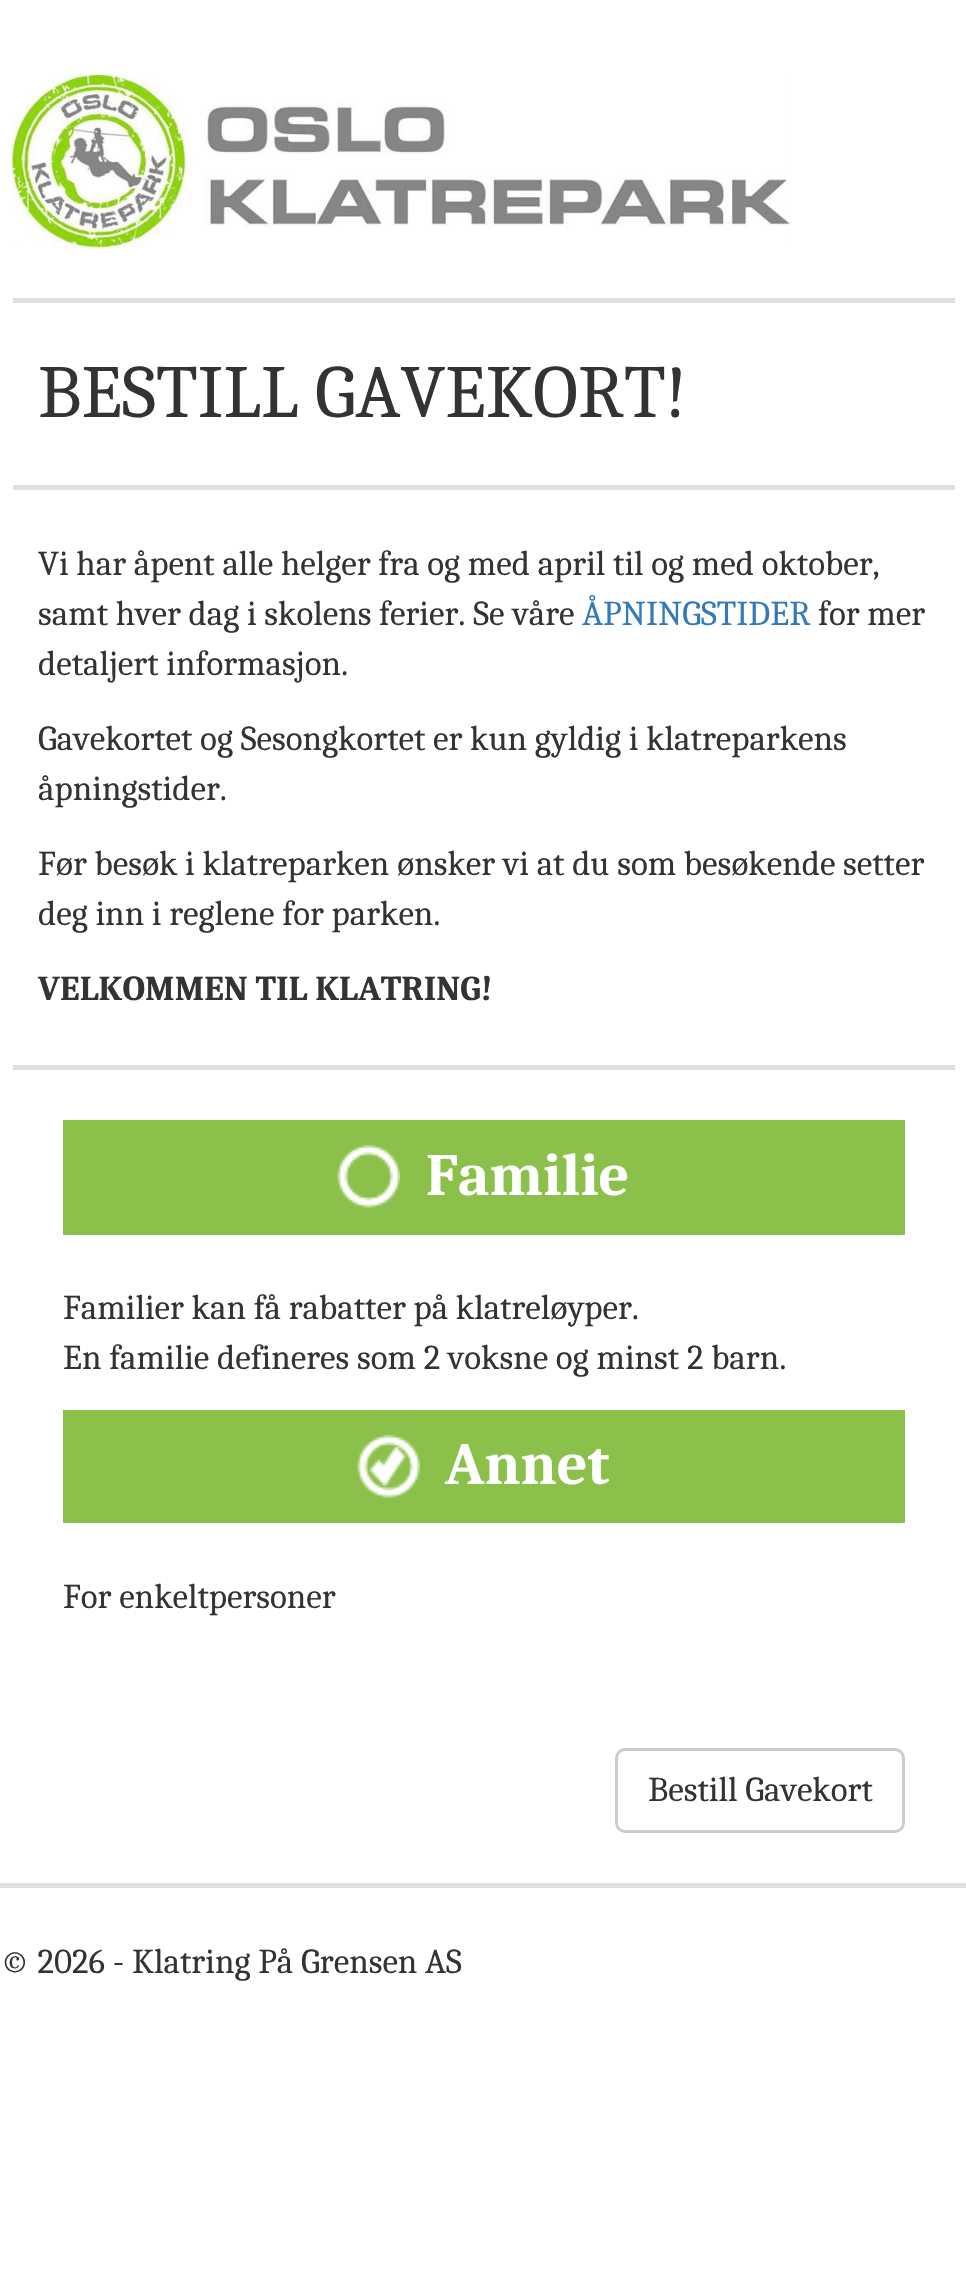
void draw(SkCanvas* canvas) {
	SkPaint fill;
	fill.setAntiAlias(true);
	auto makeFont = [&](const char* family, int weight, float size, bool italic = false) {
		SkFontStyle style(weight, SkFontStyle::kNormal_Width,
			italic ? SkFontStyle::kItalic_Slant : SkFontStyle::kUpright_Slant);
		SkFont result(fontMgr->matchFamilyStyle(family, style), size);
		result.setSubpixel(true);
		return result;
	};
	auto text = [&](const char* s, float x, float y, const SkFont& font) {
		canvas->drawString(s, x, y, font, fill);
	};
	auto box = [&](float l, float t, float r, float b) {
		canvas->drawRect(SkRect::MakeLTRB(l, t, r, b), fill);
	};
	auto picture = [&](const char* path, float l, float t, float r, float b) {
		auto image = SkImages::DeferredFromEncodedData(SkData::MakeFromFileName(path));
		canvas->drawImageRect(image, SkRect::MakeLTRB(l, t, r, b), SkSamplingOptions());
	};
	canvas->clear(0xFFFFFFFF);
	picture("image0.png", 12, 75, 790, 248);
	fill.setColor(0xFFE0E1DF);
	box(13, 298, 955, 303);
	box(13, 485, 955, 490);
	box(13, 1065, 955, 1070);
	fill.setColor(0xFF8BC14B);
	box(63, 1120, 905, 1235);
	picture("image1.png", 337, 1145, 400, 1208);
	box(63, 1410, 905, 1523);
	picture("image2.png", 357, 1435, 420, 1498);
	fill.setStyle(SkPaint::kStroke_Style);
	fill.setStrokeWidth(3);
	fill.setColor(0xFFCCCCCC);
	canvas->drawRoundRect(SkRect::MakeLTRB(616.5f, 1749.5f, 903.5f, 1831.5f), 8.5f, 8.5f, fill);
	fill.setStyle(SkPaint::kFill_Style);
	fill.setColor(0xFFE0E1DF);
	box(0, 1883, 966, 1888);
	auto font1 = makeFont("Caladea", 400, 75);
	fill.setColor(0xFF333333);
	text("BESTILL GAVEKORT!", 38, 417, font1);
	auto font2 = makeFont("Caladea", 400, 35);
	text("Vi har åpent alle helger fra og med april til og med oktober,", 38, 575, font2);
	text("samt hver dag i skolens ferier. Se våre", 38, 625, font2);
	fill.setColor(0xFF337AB7);
	text("ÅPNINGSTIDER", 582, 625, font2);
	fill.setColor(0xFF333333);
	text("for mer", 818, 625, font2);
	text("detaljert informasjon.", 38, 675, font2);
	text("Gavekortet og Sesongkortet er kun gyldig i klatreparkens", 38, 750, font2);
	text("åpningstider.", 38, 800, font2);
	text("Før besøk i klatreparken ønsker vi at du som besøkende setter", 38, 875, font2);
	text("deg inn i reglene for parken.", 38, 925, font2);
	auto font3 = makeFont("Caladea", 700, 35);
	text("VELKOMMEN TIL KLATRING!", 38, 1000, font3);
	auto font4 = makeFont("Caladea", 700, 60);
	fill.setColor(0xFFFFFFFF);
	text("Familie", 426, 1195, font4);
	fill.setColor(0xFF333333);
	text("Familier kan få rabatter på klatreløyper.", 63, 1319, font2);
	text("En familie defineres som 2 voksne og minst 2 barn.", 63, 1369, font2);
	fill.setColor(0xFFFFFFFF);
	text("Annet", 445, 1484, font4);
	fill.setColor(0xFF333333);
	text("For enkeltpersoner", 63, 1608, font2);
	text("Bestill Gavekort", 648, 1801, font2);
	text("© 2026 - Klatring På Grensen AS", 0, 1973, font2);
}
